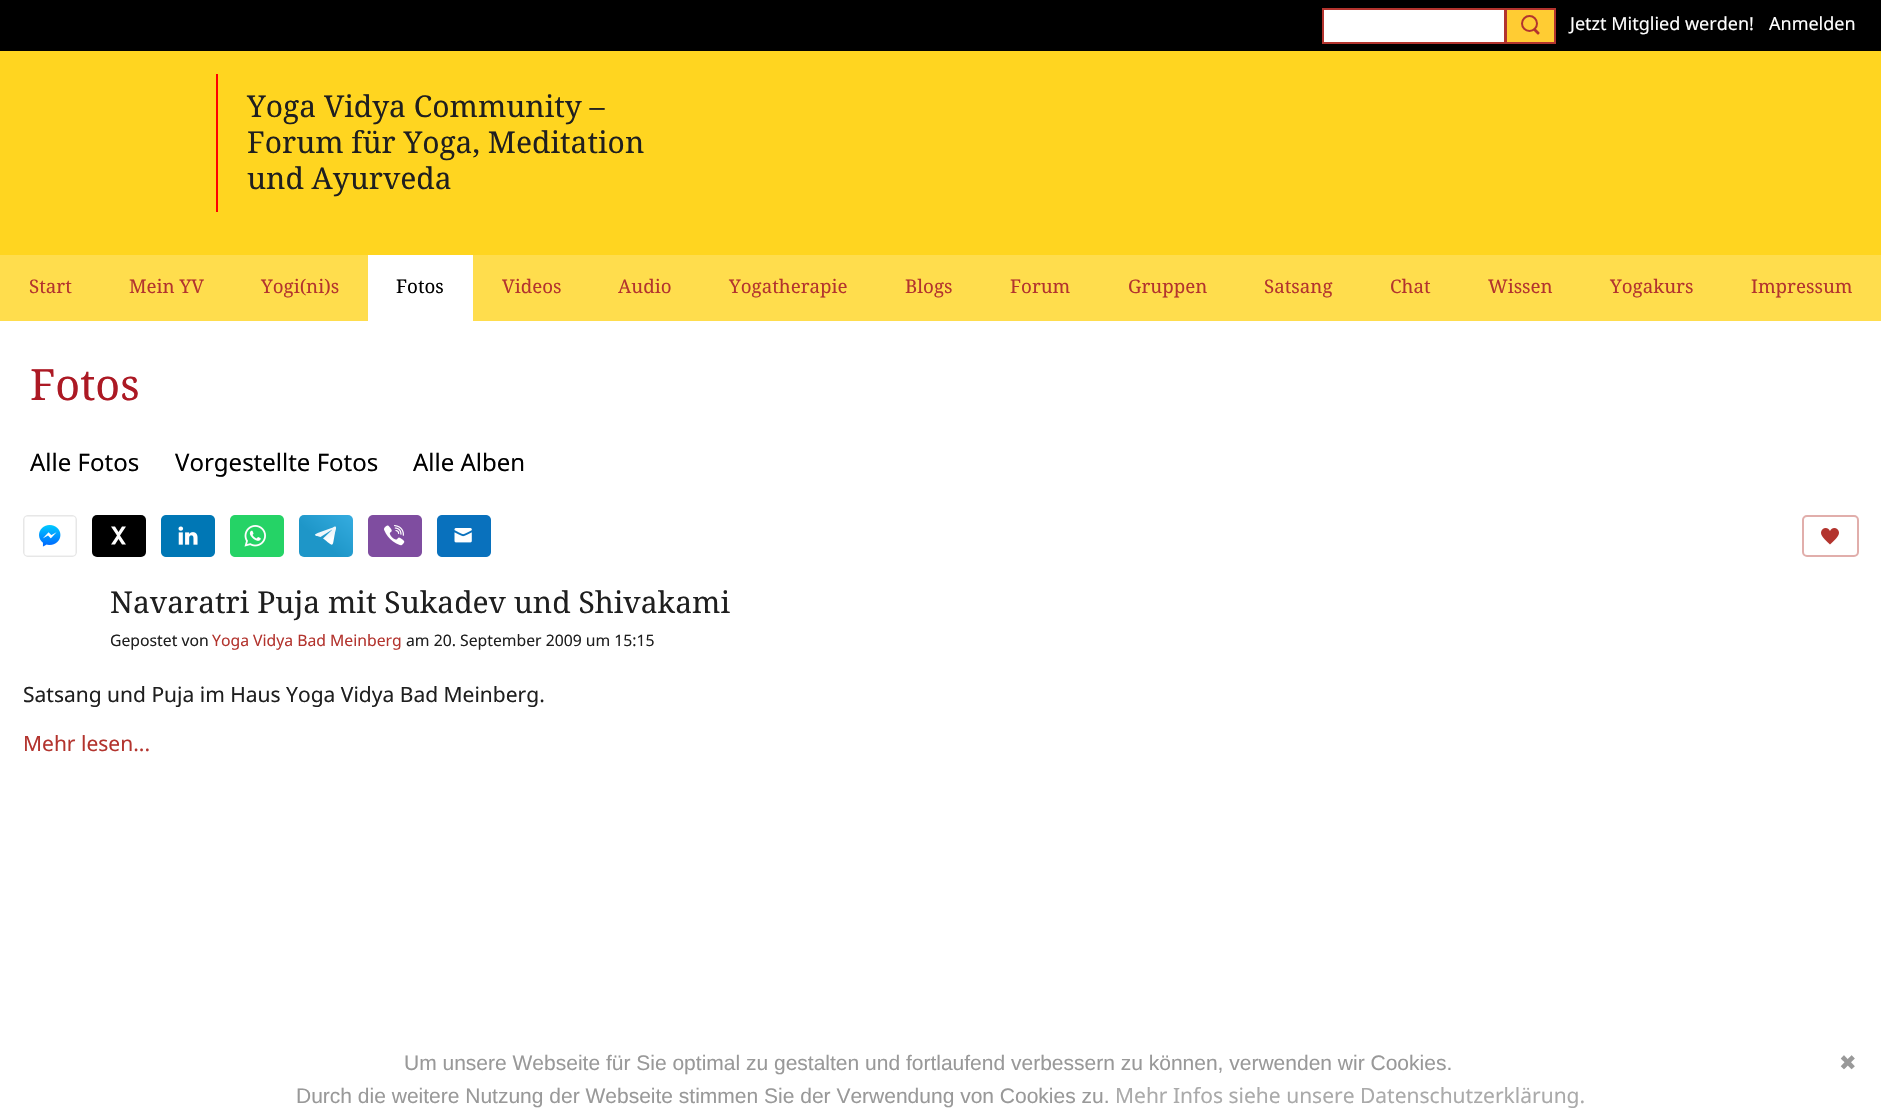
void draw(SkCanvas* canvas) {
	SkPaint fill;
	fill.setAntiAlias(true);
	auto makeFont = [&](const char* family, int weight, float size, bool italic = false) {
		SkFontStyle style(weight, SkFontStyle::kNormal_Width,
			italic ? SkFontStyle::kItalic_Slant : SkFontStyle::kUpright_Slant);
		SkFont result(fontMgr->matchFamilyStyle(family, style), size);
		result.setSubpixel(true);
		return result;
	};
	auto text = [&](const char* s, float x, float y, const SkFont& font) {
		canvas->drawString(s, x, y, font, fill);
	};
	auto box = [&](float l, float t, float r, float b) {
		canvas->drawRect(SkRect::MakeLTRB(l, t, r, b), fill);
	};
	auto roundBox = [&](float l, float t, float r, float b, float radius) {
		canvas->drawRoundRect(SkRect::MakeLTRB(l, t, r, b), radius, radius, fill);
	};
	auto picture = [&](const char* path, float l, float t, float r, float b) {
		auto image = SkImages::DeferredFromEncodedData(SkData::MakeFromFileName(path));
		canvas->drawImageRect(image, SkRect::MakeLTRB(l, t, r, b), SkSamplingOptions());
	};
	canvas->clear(0xFFFFD520);
	fill.setColor(0xFF000000);
	box(0, 0, 1881, 51);
	fill.setColor(0xFFFFFFFF);
	canvas->drawRect(SkRect::MakeLTRB(1323, 9, 1505, 43), fill);
	fill.setStyle(SkPaint::kStroke_Style);
	fill.setStrokeWidth(2);
	fill.setColor(0xFFB3342E);
	canvas->drawRect(SkRect::MakeLTRB(1323, 9, 1505, 43), fill);
	fill.setStyle(SkPaint::kFill_Style);
	fill.setColor(0xFFFFCC33);
	canvas->drawRect(SkRect::MakeLTRB(1506, 9, 1555, 43), fill);
	fill.setStyle(SkPaint::kStroke_Style);
	fill.setColor(0xFFB3342E);
	canvas->drawRect(SkRect::MakeLTRB(1506, 9, 1555, 43), fill);
	canvas->drawCircle(1529.5f, 23.5f, 7.5f, fill);
	fill.setStyle(SkPaint::kFill_Style);
	canvas->drawPath(SkPathBuilder().moveTo(1536, 29).lineTo(1539.5f, 32.5f).cubicTo(1540, 33.5f, 1538.5f, 35, 1537.5f, 34.5f).lineTo(1533.5f, 30.5f).cubicTo(1532.5f, 29, 1534.5f, 27.5f, 1536, 29).close().detach(), fill);
	fill.setColor(0xFFFF0000);
	box(216, 74, 218, 212);
	fill.setColor(0xFFFFDD4D);
	box(0, 255, 1881, 321);
	fill.setColor(0xFFFFFFFF);
	box(368, 255, 473, 321);
	box(0, 321, 1881, 1119);
	picture("image0.png", 23, 515, 77, 557);
	fill.setColor(0xFF000000);
	roundBox(92, 515, 146, 557, 5);
	fill.setColor(0xFFFFFFFF);
	canvas->drawPath(SkPathBuilder(SkPathFillType::kEvenOdd).moveTo(111, 526.5f).lineTo(117, 535.5f).lineTo(111, 544.5f).lineTo(115, 544.5f).lineTo(118.5f, 539).lineTo(122, 544.5f).lineTo(126, 544.5f).lineTo(120, 535.5f).lineTo(126, 526.5f).lineTo(122, 526.5f).lineTo(118.5f, 532).lineTo(115, 526.5f).close().detach(), fill);
	picture("image1.png", 161, 515, 215, 557);
	picture("image2.png", 230, 515, 284, 557);
	{
		const SkColor colors[] = {0xFF37AEE2, 0xFF1E96C8};
		const float stops[] = {0, 1};
		const SkPoint ends[] = {{358, 515}, {330, 549}};
		fill.setShader(SkGradientShader::MakeLinear(ends, colors, stops, 2, SkTileMode::kClamp));
		fill.setAlpha(255);
	}
	roundBox(299, 515, 353, 557, 5);
	{
		const SkColor colors[] = {0xFFEFF7FC, 0xFFFFFFFF};
		const float stops[] = {0, 1};
		const SkPoint ends[] = {{328, 535}, {330, 540}};
		fill.setShader(SkGradientShader::MakeLinear(ends, colors, stops, 2, SkTileMode::kClamp));
		fill.setAlpha(255);
	}
	canvas->drawPath(SkPathBuilder().moveTo(323, 538.5f).cubicTo(334.5f, 547, 332, 548, 335, 533).cubicTo(335, 532.5f, 337, 527, 335.5f, 526.5f).cubicTo(334, 526, 333, 527.5f, 331.5f, 528).lineTo(319, 532.5f).cubicTo(311.5f, 535.5f, 316, 535.5f, 320.5f, 537).lineTo(331.5f, 530).cubicTo(332, 529.5f, 332.5f, 530, 332, 530).detach(), fill);
	picture("image3.png", 368, 515, 422, 557);
	picture("image4.png", 437, 515, 491, 557);
	fill.setStyle(SkPaint::kStroke_Style);
	fill.setShader(nullptr);
	fill.setColor(0xFFE1AEAB);
	canvas->drawRoundRect(SkRect::MakeLTRB(1803, 516, 1858, 556), 4, 4, fill);
	picture("image5.png", 1821, 528, 1839, 545);
	auto font1 = makeFont("Noto Sans", 400, 18);
	fill.setStyle(SkPaint::kFill_Style);
	fill.setColor(0xFFFFFFFF);
	text("Jetzt Mitglied werden!", 1570, 30, font1);
	text("Anmelden", 1769, 30, font1);
	auto font2 = makeFont("Noto Serif", 400, 30);
	fill.setColor(0xFF1F1F1F);
	text("Yoga Vidya Community –", 247, 117, font2);
	text("Forum für Yoga, Meditation", 247, 153, font2);
	text("und Ayurveda", 247, 189, font2);
	auto font3 = makeFont("Noto Serif", 400, 18.75f);
	fill.setColor(0xFFB3342E);
	text("Start", 29, 293, font3);
	text("Mein YV", 129, 293, font3);
	text("Yogi(ni)s", 261, 293, font3);
	fill.setColor(0xFF000000);
	text("Fotos", 396, 293, font3);
	fill.setColor(0xFFB3342E);
	text("Videos", 502, 293, font3);
	text("Audio", 618, 293, font3);
	text("Yogatherapie", 729, 293, font3);
	text("Blogs", 905, 293, font3);
	text("Forum", 1010, 293, font3);
	text("Gruppen", 1128, 293, font3);
	text("Satsang", 1264, 293, font3);
	text("Chat", 1390, 293, font3);
	text("Wissen", 1488, 293, font3);
	text("Yogakurs", 1610, 293, font3);
	text("Impressum", 1751, 293, font3);
	auto font4 = makeFont("Noto Serif", 400, 43);
	fill.setColor(0xFFAC1924);
	text("Fotos", 30, 400, font4);
	auto font5 = makeFont("Noto Sans", 400, 24);
	fill.setColor(0xFF000000);
	text("Alle Fotos", 30, 471, font5);
	text("Vorgestellte Fotos", 175, 471, font5);
	text("Alle Alben", 413, 471, font5);
	fill.setColor(0xFF1F1F1F);
	text("Navaratri Puja mit Sukadev und Shivakami", 110, 613, font2);
	auto font6 = makeFont("Noto Sans", 400, 15.75f);
	text("Gepostet von", 110, 646, font6);
	fill.setColor(0xFFB3342E);
	text("Yoga Vidya Bad Meinberg", 212, 646, font6);
	fill.setColor(0xFF1F1F1F);
	text("am 20. September 2009 um 15:15", 406, 646, font6);
	auto font7 = makeFont("Noto Sans", 400, 21);
	text("Satsang und Puja im Haus Yoga Vidya Bad Meinberg.", 23, 702, font7);
	fill.setColor(0xFFB3342E);
	text("Mehr lesen...", 23, 751, font7);
	auto font8 = makeFont("Liberation Sans", 400, 21);
	fill.setColor(0xFF999999);
	text("Um unsere Webseite für Sie optimal zu gestalten und fortlaufend verbessern zu können, verwenden wir Cookies.", 404, 1070, font8);
	auto font9 = makeFont("DejaVu Sans", 400, 21);
	text("✖", 1839, 1070, font9);
	text("Durch die weitere Nutzung der Webseite stimmen Sie der Verwendung von Cookies zu.", 296, 1103, font8);
	fill.setColor(0xFFAAAAAA);
	text("Mehr Infos siehe unsere Datenschutzerklärung.", 1115, 1103, font7);
}
